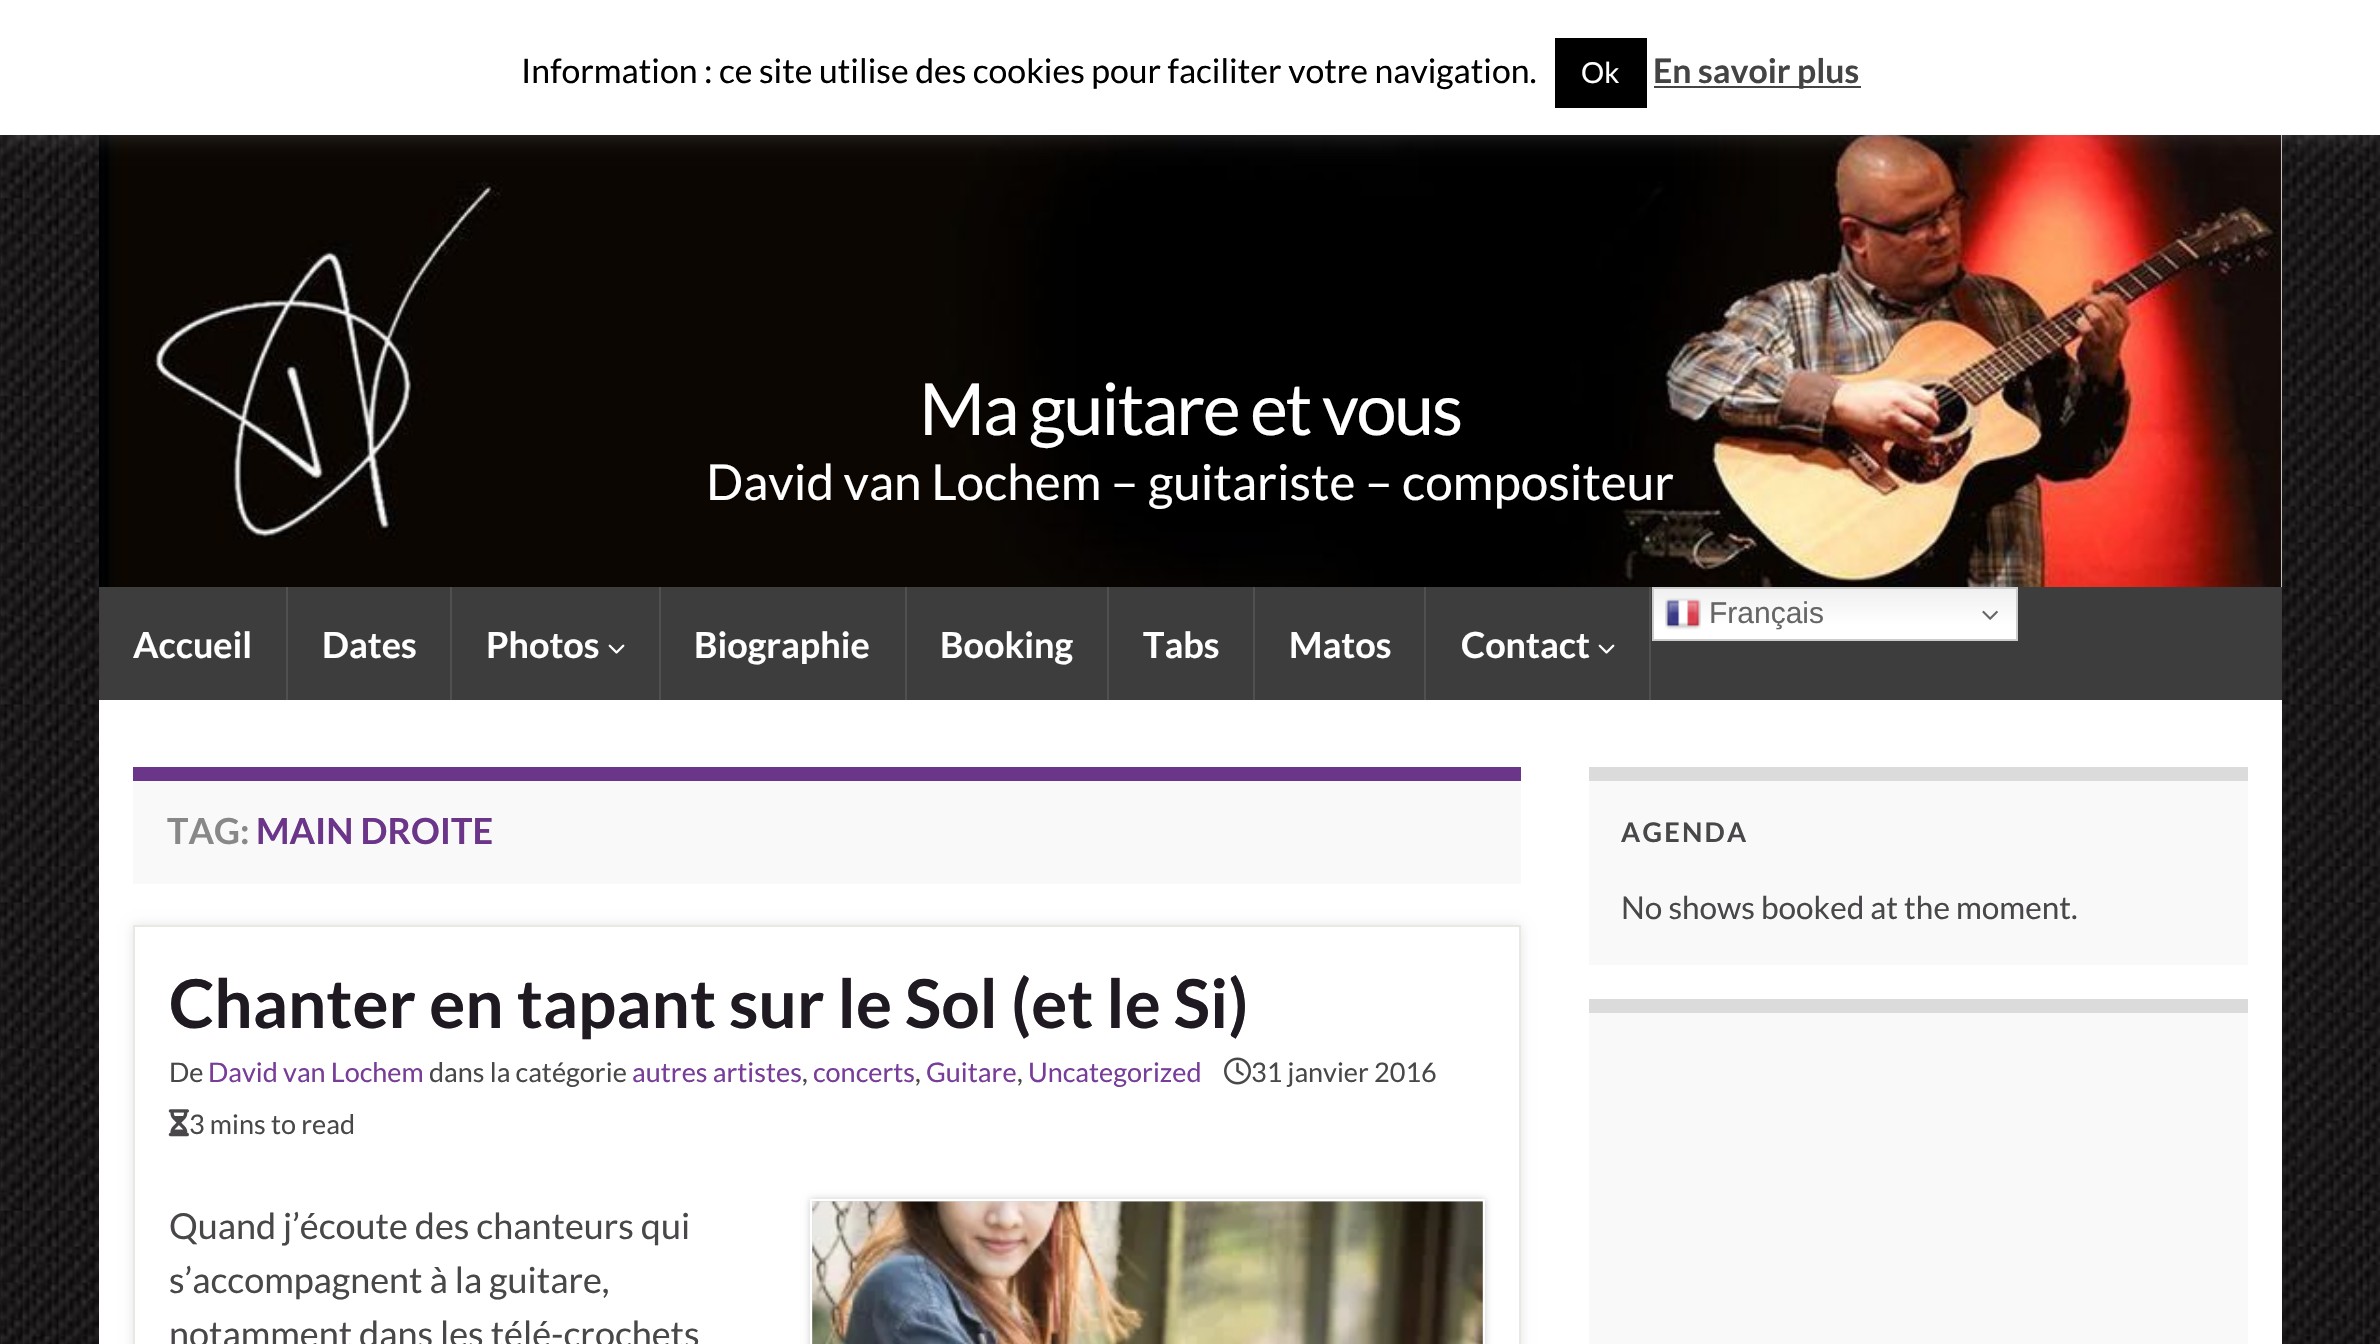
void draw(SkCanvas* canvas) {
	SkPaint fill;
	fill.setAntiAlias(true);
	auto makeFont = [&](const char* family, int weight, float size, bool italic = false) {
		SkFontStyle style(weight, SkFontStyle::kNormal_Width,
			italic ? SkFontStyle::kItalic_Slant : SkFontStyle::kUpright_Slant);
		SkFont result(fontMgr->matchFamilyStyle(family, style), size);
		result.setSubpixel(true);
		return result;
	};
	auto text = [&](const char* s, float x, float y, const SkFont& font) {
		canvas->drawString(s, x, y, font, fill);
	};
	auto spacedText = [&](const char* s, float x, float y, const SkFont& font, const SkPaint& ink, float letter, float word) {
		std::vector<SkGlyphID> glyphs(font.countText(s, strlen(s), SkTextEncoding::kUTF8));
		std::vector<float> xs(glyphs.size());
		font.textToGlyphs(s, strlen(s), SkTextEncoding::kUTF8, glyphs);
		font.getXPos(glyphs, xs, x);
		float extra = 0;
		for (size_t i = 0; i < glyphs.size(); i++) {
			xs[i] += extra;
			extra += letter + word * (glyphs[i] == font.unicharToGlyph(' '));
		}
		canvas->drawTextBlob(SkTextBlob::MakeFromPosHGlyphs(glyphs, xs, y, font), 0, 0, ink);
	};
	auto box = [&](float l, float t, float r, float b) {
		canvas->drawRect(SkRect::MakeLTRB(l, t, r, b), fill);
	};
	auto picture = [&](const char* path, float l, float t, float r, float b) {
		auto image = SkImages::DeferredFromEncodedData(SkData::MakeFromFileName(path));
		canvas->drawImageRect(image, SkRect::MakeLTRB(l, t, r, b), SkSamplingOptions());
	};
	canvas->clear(0xFFFFFFFF);
	picture("image0.png", 0, 135, 2380, 1344);
	fill.setColor(0x1A000000);
	fill.setMaskFilter(SkMaskFilter::MakeBlur(kNormal_SkBlurStyle, 11));
	canvas->drawRect(SkRect::MakeLTRB(99, 0, 2282, 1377), fill);
	fill.setMaskFilter(nullptr);
	fill.setColor(0xFFFFFFFF);
	box(2281, 135, 2282, 587);
	picture("image1.png", 99, 135, 2282, 587);
	fill.setColor(0x4DACABAB);
	fill.setMaskFilter(SkMaskFilter::MakeBlur(kNormal_SkBlurStyle, 11));
	canvas->drawRect(SkRect::MakeLTRB(0, -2, 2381, 133), fill);
	fill.setMaskFilter(nullptr);
	fill.setColor(0xFFFFFFFF);
	box(0, 0, 2380, 135);
	fill.setColor(0xFF000000);
	box(1555, 38, 1647, 108);
	fill.setColor(0xFF444444);
	box(1654, 86, 1861, 88);
	fill.setColor(0xFF3D3D3D);
	box(99, 587, 2282, 700);
	{
		const SkColor colors[] = {0xFFEFEFEF, 0xFFFFFFFF};
		const float stops[] = {0, 0.7f};
		const SkPoint ends[] = {{1835, 587}, {1835, 641}};
		fill.setShader(SkGradientShader::MakeLinear(ends, colors, stops, 2, SkTileMode::kClamp));
		fill.setAlpha(255);
	}
	box(1654, 589, 2016, 639);
	fill.setStyle(SkPaint::kStroke_Style);
	fill.setStrokeWidth(2);
	fill.setShader(nullptr);
	fill.setColor(0xFFCCCCCC);
	canvas->drawRect(SkRect::MakeLTRB(1653, 588, 2017, 640), fill);
	picture("image2.png", 1665, 598, 1701, 630);
	picture("image3.png", 1982, 610, 1998, 620);
	fill.setStyle(SkPaint::kFill_Style);
	fill.setColor(0xFF505050);
	box(286, 587, 288, 700);
	box(450, 587, 452, 700);
	box(659, 587, 661, 700);
	picture("image4.png", 608, 644, 625, 654);
	box(905, 587, 907, 700);
	box(1107, 587, 1109, 700);
	box(1253, 587, 1255, 700);
	box(1424, 587, 1426, 700);
	box(1649, 587, 1651, 700);
	picture("image4.png", 1598, 644, 1615, 654);
	fill.setColor(0xFFFFFFFF);
	box(99, 700, 2282, 1344);
	fill.setColor(0xFFF9F9F9);
	box(133, 781, 1521, 884);
	fill.setColor(0xFF6B3589);
	box(133, 767, 1521, 781);
	canvas->save();
	canvas->clipPath(SkPathBuilder(SkPathFillType::kEvenOdd).moveTo(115, 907).lineTo(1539, 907).lineTo(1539, 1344).lineTo(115, 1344).close().moveTo(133, 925).lineTo(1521, 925).lineTo(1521, 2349).lineTo(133, 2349).close().detach(), true);
	fill.setColor(0x1A000000);
	fill.setMaskFilter(SkMaskFilter::MakeBlur(kNormal_SkBlurStyle, 5.5f));
	canvas->drawRect(SkRect::MakeLTRB(133, 925, 1521, 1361), fill);
	fill.setMaskFilter(nullptr);
	canvas->restore();
	fill.setStyle(SkPaint::kStroke_Style);
	fill.setColor(0xFFE9E8E3);
	canvas->drawRect(SkRect::MakeLTRB(134, 926, 1520, 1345), fill);
	picture("image5.png", 1224, 1057, 1251, 1085);
	picture("image6.png", 168, 1109, 189, 1137);
	fill.setStyle(SkPaint::kFill_Style);
	fill.setColor(0x33000000);
	fill.setMaskFilter(SkMaskFilter::MakeBlur(kNormal_SkBlurStyle, 3.5f));
	canvas->drawRect(SkRect::MakeLTRB(810, 1199, 1485, 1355), fill);
	fill.setMaskFilter(nullptr);
	fill.setStyle(SkPaint::kStroke_Style);
	fill.setColor(0xFFFFFFFF);
	canvas->drawRect(SkRect::MakeLTRB(811, 1200, 1484, 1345), fill);
	picture("image7.png", 812, 1201, 1483, 1344);
	fill.setStyle(SkPaint::kFill_Style);
	fill.setColor(0xFFF9F9F9);
	box(1589, 781, 2248, 965);
	fill.setColor(0xFFDBDBDB);
	box(1589, 767, 2248, 781);
	fill.setColor(0xFFF9F9F9);
	box(1589, 1013, 2248, 1344);
	fill.setColor(0xFFDBDBDB);
	box(1589, 999, 2248, 1013);
	auto font1 = makeFont("Lato", 400, 33.75f);
	fill.setColor(0xFF000000);
	text("Information : ce site utilise des cookies pour faciliter votre navigation.", 521, 83, font1);
	auto font2 = makeFont("Lato", 400, 29);
	fill.setColor(0xFFFFFFFF);
	text("Ok", 1581, 83, font2);
	auto font3 = makeFont("Lato", 700, 33.75f);
	fill.setColor(0xFF444444);
	text("En savoir plus", 1653, 83, font3);
	auto font4 = makeFont("Lato", 400, 72);
	fill.setColor(0xFFFFFFFF);
	spacedText("Ma guitare et vous", 919, 435, font4, fill, -2.25f, 0);
	auto font5 = makeFont("Lato", 400, 49.5f);
	text("David van Lochem – guitariste – compositeur", 706, 500, font5);
	auto font6 = makeFont("Liberation Sans", 400, 30);
	fill.setColor(0xFF666666);
	text("Français", 1709, 623, font6);
	auto font7 = makeFont("Lato", 700, 36);
	fill.setColor(0xFFFFFFFF);
	text("Accueil", 133, 658, font7);
	text("Dates", 322, 658, font7);
	text("Photos", 486, 658, font7);
	text("Biographie", 694, 658, font7);
	text("Booking", 940, 658, font7);
	text("Tabs", 1143, 658, font7);
	text("Matos", 1289, 658, font7);
	text("Contact", 1461, 658, font7);
	fill.setColor(0xFF888888);
	text("TAG:", 167, 844, font7);
	fill.setColor(0xFF6B3589);
	text("MAIN DROITE", 256, 844, font7);
	auto font8 = makeFont("Lato", 700, 67.5f);
	fill.setColor(0xFF1F1A22);
	text("Chanter en tapant sur le Sol (et le Si)", 169, 1028, font8);
	auto font9 = makeFont("Lato", 400, 27);
	fill.setColor(0xFF4A474B);
	text("De", 169, 1082, font9);
	fill.setColor(0xFF783D98);
	text("David van Lochem", 208, 1082, font9);
	fill.setColor(0xFF4A474B);
	text("dans la catégorie", 429, 1082, font9);
	fill.setColor(0xFF783D98);
	text("autres artistes", 632, 1082, font9);
	fill.setColor(0xFF4A474B);
	text(",", 802, 1082, font9);
	fill.setColor(0xFF783D98);
	text("concerts", 813, 1082, font9);
	fill.setColor(0xFF4A474B);
	text(",", 915, 1082, font9);
	fill.setColor(0xFF783D98);
	text("Guitare", 926, 1082, font9);
	fill.setColor(0xFF4A474B);
	text(",", 1017, 1082, font9);
	fill.setColor(0xFF783D98);
	text("Uncategorized", 1028, 1082, font9);
	fill.setColor(0xFF4A474B);
	text("31 janvier 2016", 1251, 1082, font9);
	text("3 mins to read", 189, 1134, font9);
	auto font10 = makeFont("Lato", 400, 36);
	text("Quand j’écoute des chanteurs qui", 169, 1239, font10);
	text("s’accompagnent à la guitare,", 169, 1293, font10);
	text("notamment dans les télé-crochets", 169, 1347, font10);
	auto font11 = makeFont("Lato", 700, 27);
	spacedText("AGENDA", 1621, 842, font11, fill, 2.25f, 0);
	auto font12 = makeFont("Lato", 400, 31.5f);
	text("No shows booked at the moment.", 1621, 919, font12);
}
